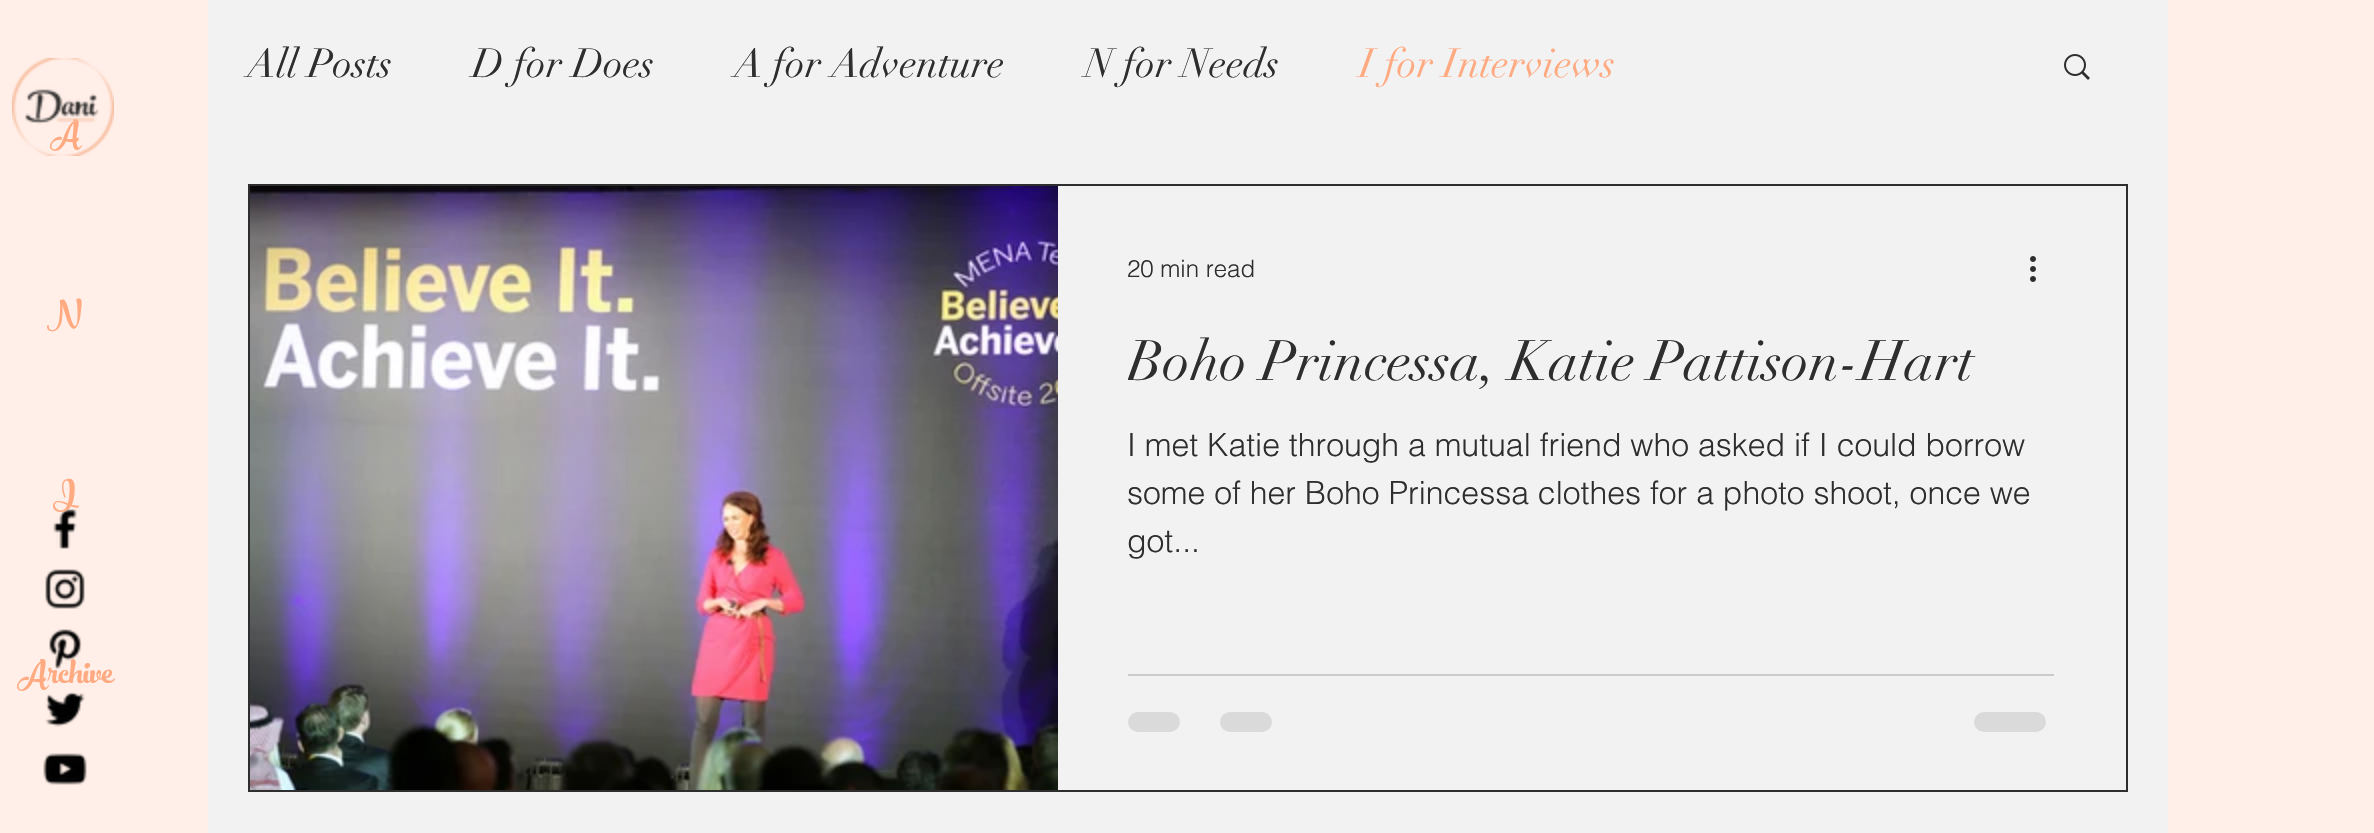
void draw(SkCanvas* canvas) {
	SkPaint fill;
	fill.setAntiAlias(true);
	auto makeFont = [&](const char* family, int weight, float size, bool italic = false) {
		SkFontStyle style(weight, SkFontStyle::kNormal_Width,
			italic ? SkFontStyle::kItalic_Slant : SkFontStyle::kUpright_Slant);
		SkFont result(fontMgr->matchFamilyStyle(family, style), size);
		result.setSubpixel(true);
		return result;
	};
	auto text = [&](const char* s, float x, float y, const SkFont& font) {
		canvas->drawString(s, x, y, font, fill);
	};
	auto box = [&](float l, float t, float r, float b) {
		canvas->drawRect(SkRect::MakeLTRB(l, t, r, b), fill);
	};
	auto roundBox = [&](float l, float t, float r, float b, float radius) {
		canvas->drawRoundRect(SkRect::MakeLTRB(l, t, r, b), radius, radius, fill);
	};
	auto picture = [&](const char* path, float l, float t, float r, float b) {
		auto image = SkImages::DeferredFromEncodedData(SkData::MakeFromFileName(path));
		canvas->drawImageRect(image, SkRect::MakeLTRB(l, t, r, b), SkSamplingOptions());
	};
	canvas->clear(0xFFFFEFE8);
	fill.setColor(0xFFF2F2F2);
	box(208, 0, 2168, 833);
	picture("image1.png", 2064, 54, 2090, 80);
	fill.setStyle(SkPaint::kStroke_Style);
	fill.setStrokeWidth(2);
	fill.setColor(0xFF2E2E2E);
	canvas->drawRect(SkRect::MakeLTRB(249, 185, 2127, 791), fill);
	picture("image2.png", 250, 186, 1058, 790);
	picture("image3.png", 2030, 256, 2036, 282);
	fill.setStyle(SkPaint::kFill_Style);
	fill.setColor(0xFFCBCBCB);
	box(1128, 674, 2054, 676);
	fill.setColor(0xFFDADADA);
	roundBox(1128, 712, 1180, 732, 10);
	roundBox(1220, 712, 1272, 732, 10);
	roundBox(1974, 712, 2046, 732, 10);
	picture("image4.png", 53, 509, 77, 549);
	picture("image5.png", 45, 569, 85, 609);
	picture("image6.png", 49, 629, 82, 669);
	picture("image7.png", 45, 692, 85, 727);
	picture("image8.png", 43, 753, 87, 785);
	auto font1 = makeFont("didot", 400, 40);
	fill.setColor(0xFF2E2E2E);
	text("All Posts", 247, 77, font1);
	text("D for Does", 472, 77, font1);
	text("A for Adventure", 734, 77, font1);
	text("N for Needs", 1085, 77, font1);
	fill.setColor(0xFFFFAA81);
	text("I for Interviews", 1359, 77, font1);
	auto font2 = makeFont("helvetica", 300, 24);
	fill.setColor(0xFF2E2E2E);
	text("20 min read", 1127, 277, font2);
	canvas->save();
	canvas->clipRect(SkRect::MakeLTRB(1128, 328, 2054, 396));
	auto font3 = makeFont("didot", 400, 56);
	text("Boho Princessa, Katie Pattison-Hart", 1127, 380, font3);
	canvas->restore();
	auto font4 = makeFont("helvetica", 300, 32);
	text("I met Katie through a mutual friend who asked if I could borrow", 1127, 456, font4);
	text("some of her Boho Princessa clothes for a photo shoot, once we", 1127, 504, font4);
	text("got...", 1127, 552, font4);
	auto font5 = makeFont("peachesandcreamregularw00", 400, 50);
	fill.setColor(0xFFFFAA81);
	text("A", 50, 143, font5);
	picture("image0.png", 12, 58, 114, 156);
	text("N", 47, 323, font5);
	text("I", 53, 503, font5);
	text("Archive", 17, 683, font5);
}
